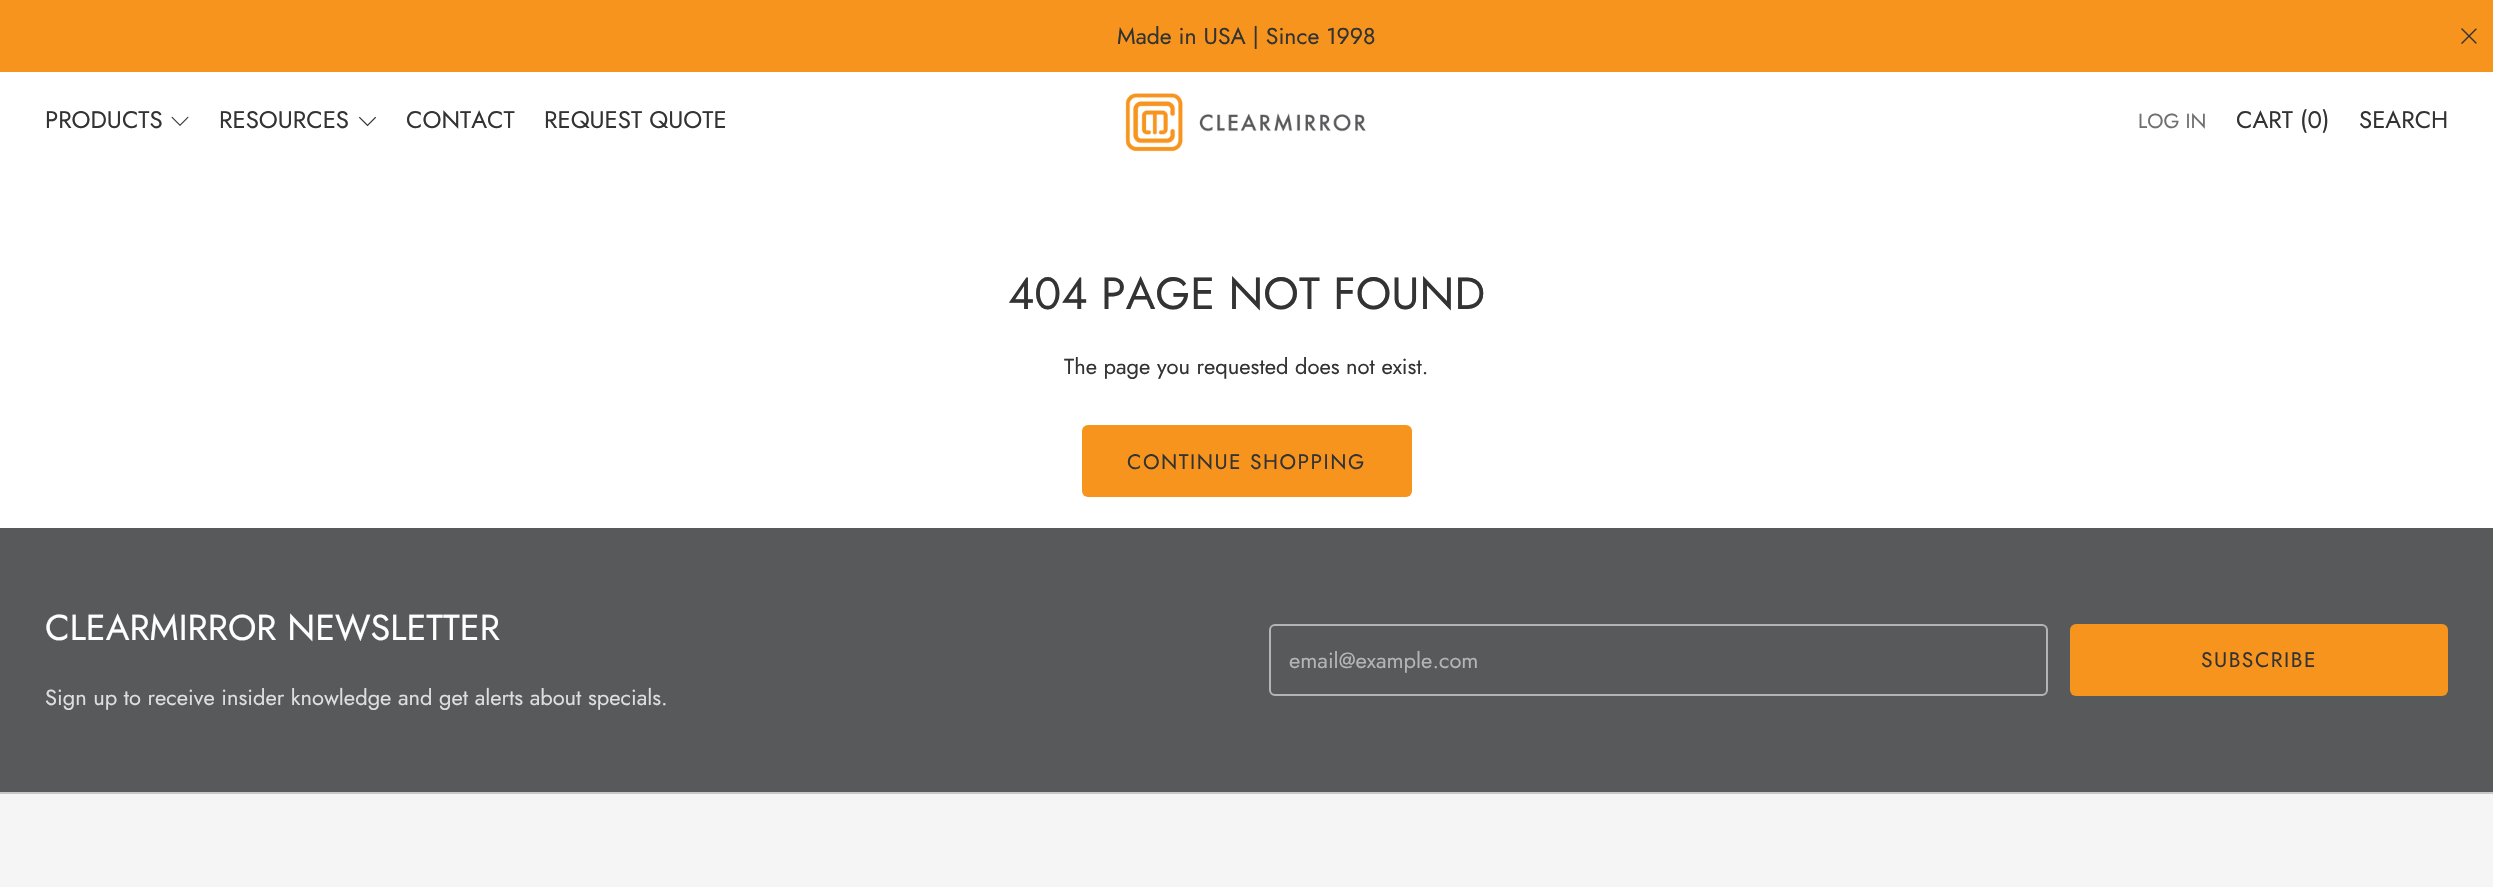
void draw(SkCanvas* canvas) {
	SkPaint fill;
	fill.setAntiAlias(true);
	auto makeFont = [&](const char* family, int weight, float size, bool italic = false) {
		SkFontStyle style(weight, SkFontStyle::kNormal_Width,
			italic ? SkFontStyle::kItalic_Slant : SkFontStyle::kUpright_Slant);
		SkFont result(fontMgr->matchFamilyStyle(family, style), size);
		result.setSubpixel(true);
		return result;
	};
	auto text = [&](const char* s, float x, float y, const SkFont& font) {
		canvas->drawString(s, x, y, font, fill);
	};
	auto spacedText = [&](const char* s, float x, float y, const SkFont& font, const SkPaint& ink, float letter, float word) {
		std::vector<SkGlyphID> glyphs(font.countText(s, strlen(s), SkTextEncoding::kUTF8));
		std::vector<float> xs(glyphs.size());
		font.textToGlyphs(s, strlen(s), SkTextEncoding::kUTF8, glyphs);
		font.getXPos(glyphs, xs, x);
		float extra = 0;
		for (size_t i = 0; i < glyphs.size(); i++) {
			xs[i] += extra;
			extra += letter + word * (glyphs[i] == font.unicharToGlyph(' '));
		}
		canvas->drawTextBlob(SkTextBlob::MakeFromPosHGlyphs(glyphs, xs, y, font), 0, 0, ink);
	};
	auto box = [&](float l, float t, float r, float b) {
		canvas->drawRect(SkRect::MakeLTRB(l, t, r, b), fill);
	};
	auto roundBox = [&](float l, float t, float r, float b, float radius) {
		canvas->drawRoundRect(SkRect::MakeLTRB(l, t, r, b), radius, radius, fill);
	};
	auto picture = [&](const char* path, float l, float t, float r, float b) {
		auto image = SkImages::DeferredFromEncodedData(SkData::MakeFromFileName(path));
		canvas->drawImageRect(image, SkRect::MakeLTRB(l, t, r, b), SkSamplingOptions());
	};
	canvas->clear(0xFFFFFFFF);
	fill.setColor(0xFFF7941D);
	box(0, 0, 2493, 72);
	picture("image0.png", 2461, 28, 2477, 44);
	picture("image1.png", 1125, 93, 1366, 152);
	fill.setColor(0xFF333333);
	canvas->drawPath(SkPathBuilder().moveTo(172, 116.5f).lineTo(171.5f, 117.5f).lineTo(180, 126).lineTo(188.5f, 117.5f).lineTo(188, 116.5f).lineTo(180, 124.5f).close().detach(), fill);
	picture("image2.png", 358, 116, 377, 127);
	fill.setColor(0xFFF7941D);
	roundBox(1082, 425, 1412, 497, 6);
	fill.setColor(0xFF58595B);
	box(0, 528, 2493, 792);
	fill.setStyle(SkPaint::kStroke_Style);
	fill.setStrokeWidth(2);
	fill.setColor(0xFFB4B4B5);
	canvas->drawRoundRect(SkRect::MakeLTRB(1270, 625, 2047, 695), 5, 5, fill);
	fill.setStyle(SkPaint::kFill_Style);
	fill.setColor(0xFFF7941D);
	roundBox(2070, 624, 2448, 696, 6);
	fill.setColor(0xFFF5F5F5);
	box(0, 794, 2493, 887);
	fill.setColor(0xFFC7C7C7);
	box(0, 792, 2493, 794);
	auto font1 = makeFont("Jost", 400, 23);
	fill.setColor(0xFF333333);
	text("Made in USA | Since 1998", 1117, 44, font1);
	auto font2 = makeFont("Jost", 400, 24);
	text("PRODUCTS", 45, 128, font2);
	text("RESOURCES", 219, 128, font2);
	text("CONTACT", 406, 128, font2);
	text("REQUEST QUOTE", 544, 128, font2);
	auto font3 = makeFont("Jost", 400, 20.5f);
	fill.setColor(0xFF707070);
	text("LOG IN", 2138, 128, font3);
	fill.setColor(0xFF333333);
	text("CART (0)", 2236, 128, font2);
	text("SEARCH", 2359, 128, font2);
	auto font4 = makeFont("Jost", 400, 45);
	text("404 PAGE NOT FOUND", 1008, 309, font4);
	auto font5 = makeFont("Jost", 400, 21.9f);
	text("The page you requested does not exist.", 1064, 374, font5);
	auto font6 = makeFont("Jost", 400, 21);
	spacedText("CONTINUE SHOPPING", 1127, 469, font6, fill, 1.5f, 0);
	auto font7 = makeFont("Jost", 400, 36);
	fill.setColor(0xFFFFFFFF);
	text("CLEARMIRROR NEWSLETTER", 45, 640, font7);
	fill.setColor(0xFFDEDEDE);
	text("Sign up to receive insider knowledge and get alerts about specials.", 45, 705, font5);
	fill.setColor(0xFFB4B4B5);
	text("email@example.com", 1289, 668, font5);
	fill.setColor(0xFF333333);
	spacedText("SUBSCRIBE", 2201, 667, font6, fill, 1.5f, 0);
}
